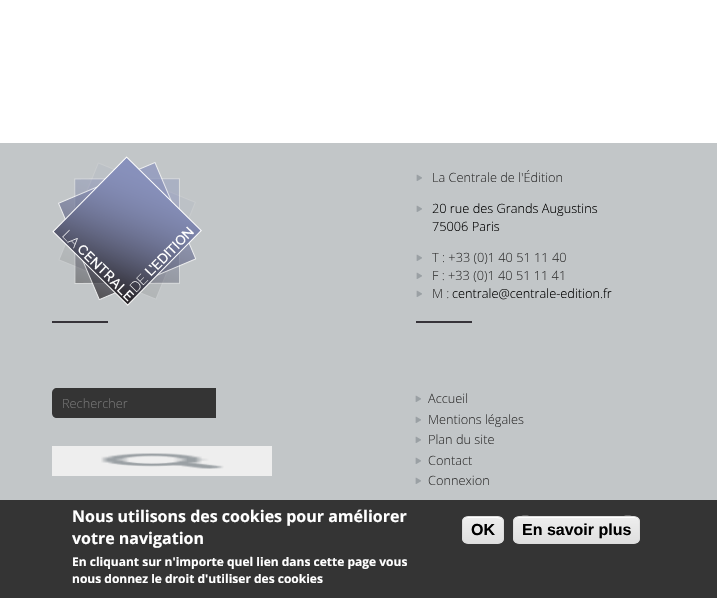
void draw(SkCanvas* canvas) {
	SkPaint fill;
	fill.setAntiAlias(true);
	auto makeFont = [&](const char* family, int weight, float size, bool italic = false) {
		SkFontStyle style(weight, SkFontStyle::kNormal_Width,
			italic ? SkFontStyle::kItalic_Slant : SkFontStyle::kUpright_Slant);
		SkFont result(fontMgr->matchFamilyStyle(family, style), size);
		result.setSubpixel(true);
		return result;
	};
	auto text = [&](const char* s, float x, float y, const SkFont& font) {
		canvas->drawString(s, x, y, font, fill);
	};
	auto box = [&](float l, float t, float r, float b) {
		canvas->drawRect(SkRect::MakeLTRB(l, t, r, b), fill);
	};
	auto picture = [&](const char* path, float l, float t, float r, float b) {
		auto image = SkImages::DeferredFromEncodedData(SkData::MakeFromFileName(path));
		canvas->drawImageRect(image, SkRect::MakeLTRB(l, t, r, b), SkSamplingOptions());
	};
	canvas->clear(0xFFFFFFFF);
	fill.setColor(0xFFC2C6C8);
	box(0, 143, 717, 500);
	fill.setColor(0xFF363339);
	box(52, 321, 108, 323);
	picture("image0.png", 52, 156, 202, 306);
	box(416, 321, 472, 323);
	picture("image1.png", 416, 174, 422, 181);
	picture("image1.png", 416, 205, 422, 212);
	picture("image1.png", 416, 254, 422, 261);
	picture("image1.png", 416, 272, 422, 279);
	picture("image1.png", 416, 290, 422, 297);
	fill.setColor(0xFF343434);
	canvas->drawPath(SkPathBuilder().moveTo(57, 388).lineTo(216, 388).lineTo(216, 418).lineTo(57, 418).cubicTo(54, 418, 52, 416, 52, 413).lineTo(52, 393).cubicTo(52, 390, 54, 388, 57, 388).close().detach(), fill);
	fill.setColor(0xFFEEEEEE);
	box(52, 446, 272, 476);
	picture("image2.png", 101, 453, 224, 469);
	picture("image1.png", 415, 395, 421, 402);
	picture("image1.png", 415, 416, 421, 423);
	picture("image1.png", 415, 436, 421, 443);
	picture("image1.png", 415, 457, 421, 464);
	picture("image1.png", 415, 477, 421, 484);
	fill.setColor(0xFF343434);
	box(0, 500, 717, 598);
	canvas->save();
	canvas->clipPath(SkPathBuilder().moveTo(468, 516).lineTo(498, 516).cubicTo(501.5f, 516, 504, 518.5f, 504, 522).lineTo(504, 538).cubicTo(504, 541.5f, 501.5f, 544, 498, 544).lineTo(468, 544).cubicTo(464.5f, 544, 462, 541.5f, 462, 538).lineTo(462, 522).cubicTo(462, 518.5f, 464.5f, 516, 468, 516).close().detach(), true);
	{
		const SkColor colors[] = {0xFFEDEDED, 0xFFDFDFDF};
		const float stops[] = {0.05f, 1};
		const SkPoint ends[] = {{463, 517}, {463, 543}};
		fill.setShader(SkGradientShader::MakeLinear(ends, colors, stops, 2, SkTileMode::kClamp));
		fill.setAlpha(255);
	}
	box(462, 517, 504, 543);
	canvas->restore();
	fill.setShader(nullptr);
	fill.setColor(0xFFFFFFFF);
	canvas->drawPath(SkPathBuilder().moveTo(468, 518).lineTo(493, 518).cubicTo(500, 518, 503, 519, 503, 522).cubicTo(503, 516, 497, 517, 493, 517).lineTo(473, 517).cubicTo(469, 517, 463, 516, 463, 522).cubicTo(463, 520, 465, 518, 468, 518).close().detach(), fill);
	fill.setStyle(SkPaint::kStroke_Style);
	fill.setStrokeWidth(1);
	fill.setColor(0xFFDCDCDC);
	canvas->drawRoundRect(SkRect::MakeLTRB(462.5f, 516.5f, 503.5f, 543.5f), 5.5f, 5.5f, fill);
	canvas->save();
	canvas->clipPath(SkPathBuilder().moveTo(519, 516).lineTo(634, 516).cubicTo(637.5f, 516, 640, 518.5f, 640, 522).lineTo(640, 538).cubicTo(640, 541.5f, 637.5f, 544, 634, 544).lineTo(519, 544).cubicTo(515.5f, 544, 513, 541.5f, 513, 538).lineTo(513, 522).cubicTo(513, 518.5f, 515.5f, 516, 519, 516).close().detach(), true);
	fill.setStyle(SkPaint::kFill_Style);
	{
		const SkColor colors[] = {0xFFEDEDED, 0xFFDFDFDF};
		const float stops[] = {0.05f, 1};
		const SkPoint ends[] = {{514, 517}, {514, 543}};
		fill.setShader(SkGradientShader::MakeLinear(ends, colors, stops, 2, SkTileMode::kClamp));
		fill.setAlpha(255);
	}
	box(513, 517, 640, 543);
	canvas->restore();
	fill.setShader(nullptr);
	fill.setColor(0xFFFFFFFF);
	canvas->drawPath(SkPathBuilder().moveTo(519, 518).lineTo(634, 518).cubicTo(637, 518, 639, 520, 639, 523).cubicTo(639, 512, 619, 517, 615, 517).lineTo(538, 517).cubicTo(534, 517, 514, 512, 514, 523).cubicTo(514, 520, 516, 518, 519, 518).close().detach(), fill);
	fill.setStyle(SkPaint::kStroke_Style);
	fill.setColor(0xFFDCDCDC);
	canvas->drawRoundRect(SkRect::MakeLTRB(513.5f, 516.5f, 639.5f, 543.5f), 5.5f, 5.5f, fill);
	auto font1 = makeFont("Open Sans", 300, 12.75f);
	fill.setStyle(SkPaint::kFill_Style);
	fill.setColor(0xFF343434);
	text("La Centrale de l'Édition", 432, 182, font1);
	fill.setColor(0xFF000000);
	text("20 rue des Grands Augustins", 432, 213, font1);
	text("75006 Paris", 432, 231, font1);
	fill.setColor(0xFF343434);
	text("T : +33 (0)1 40 51 11 40", 432, 262, font1);
	text("F : +33 (0)1 40 51 11 41", 432, 280, font1);
	text("M :", 432, 298, font1);
	fill.setColor(0xFF000000);
	text("centrale@centrale-edition.fr", 452, 298, font1);
	fill.setColor(0xFF757575);
	text("Rechercher", 62, 408, font1);
	fill.setColor(0xFF343434);
	text("Accueil", 428, 403, font1);
	text("Mentions légales", 428, 424, font1);
	text("Plan du site", 428, 444, font1);
	text("Contact", 428, 465, font1);
	text("Connexion", 428, 485, font1);
	auto font2 = makeFont("Open Sans", 700, 16);
	fill.setColor(0xFFFFFFFF);
	text("Nous utilisons des cookies pour améliorer", 72, 522, font2);
	text("votre navigation", 72, 544, font2);
	auto font3 = makeFont("Open Sans", 700, 12);
	text("En cliquant sur n'importe quel lien dans cette page vous", 72, 566, font3);
	text("nous donnez le droit d'utiliser des cookies", 72, 583, font3);
	auto font4 = makeFont("Liberation Sans", 700, 16);
	fill.setColor(0xFF000000);
	text("OK", 471, 535, font4);
	text("En savoir plus", 522, 535, font4);
}
